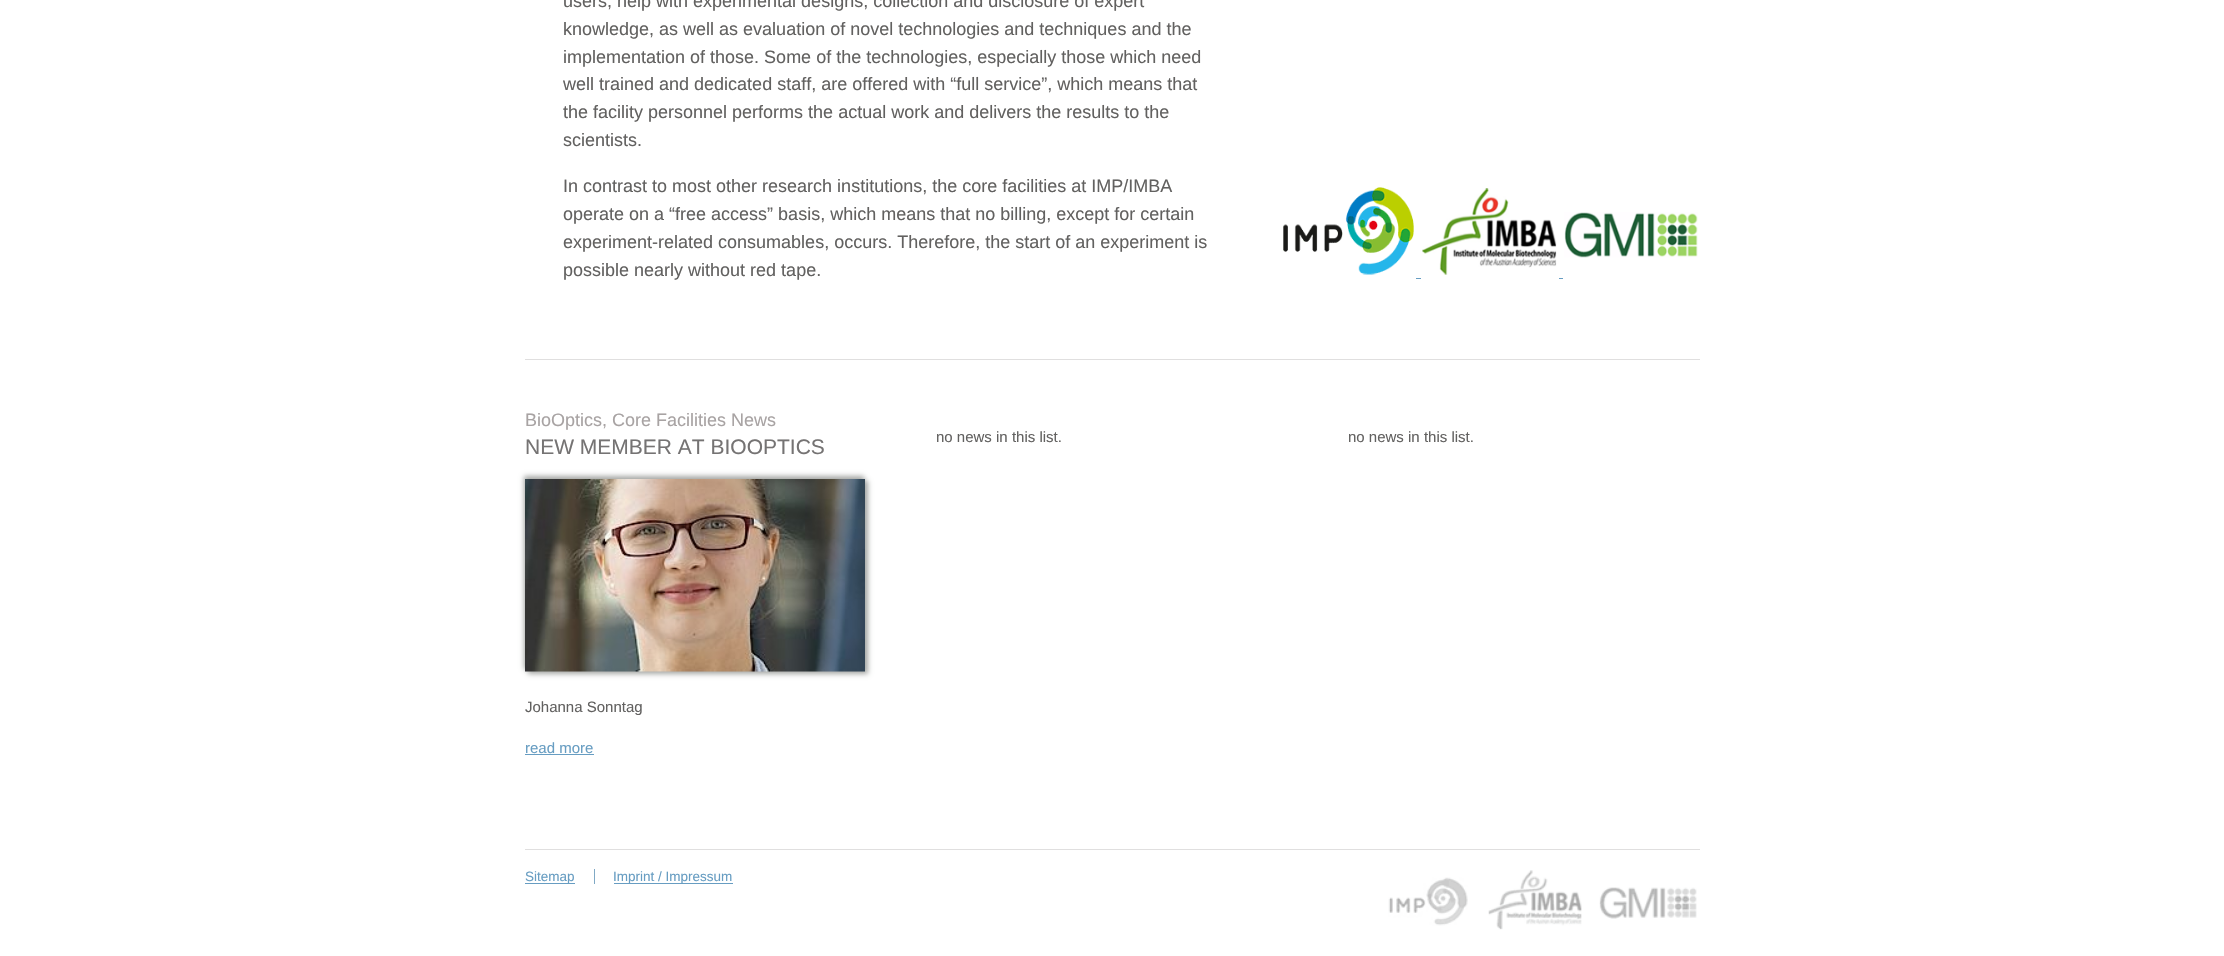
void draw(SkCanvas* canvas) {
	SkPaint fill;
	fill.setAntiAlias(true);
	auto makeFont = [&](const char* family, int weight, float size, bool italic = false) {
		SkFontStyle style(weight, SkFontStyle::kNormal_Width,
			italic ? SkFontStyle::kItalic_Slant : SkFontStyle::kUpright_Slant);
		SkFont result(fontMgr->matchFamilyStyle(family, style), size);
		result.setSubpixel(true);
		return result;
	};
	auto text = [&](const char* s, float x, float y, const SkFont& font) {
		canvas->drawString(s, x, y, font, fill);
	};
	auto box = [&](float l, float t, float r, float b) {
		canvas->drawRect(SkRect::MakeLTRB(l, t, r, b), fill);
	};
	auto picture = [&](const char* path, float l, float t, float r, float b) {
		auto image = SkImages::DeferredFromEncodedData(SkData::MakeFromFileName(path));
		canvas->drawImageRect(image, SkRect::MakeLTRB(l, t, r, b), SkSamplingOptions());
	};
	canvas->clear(0xFFFFFFFF);
	fill.setColor(0xFFE0DFDF);
	box(525, 359, 1700, 360);
	picture("image0.png", 1283, 187, 1414, 275);
	picture("image1.png", 1422, 188, 1557, 275);
	picture("image2.png", 1564, 212, 1698, 258);
	fill.setColor(0xFF679DC2);
	box(1416, 278, 1421, 279);
	box(1559, 278, 1563, 279);
	fill.setColor(0xFFA9ABA8);
	fill.setMaskFilter(SkMaskFilter::MakeBlur(kNormal_SkBlurStyle, 2.5f));
	canvas->drawRect(SkRect::MakeLTRB(524, 476, 864, 669), fill);
	fill.setMaskFilter(nullptr);
	fill.setMaskFilter(SkMaskFilter::MakeBlur(kNormal_SkBlurStyle, 2.5f));
	canvas->drawRect(SkRect::MakeLTRB(528, 481, 868, 674), fill);
	fill.setMaskFilter(nullptr);
	picture("image3.png", 525, 479, 865, 672);
	fill.setColor(0xFF679DC2);
	box(525, 754, 594, 755);
	fill.setColor(0xFFE0DFDF);
	box(525, 849, 1700, 850);
	fill.setColor(0xFF80A9C5);
	box(594, 869, 595, 884);
	fill.setColor(0xFF679DC2);
	box(525, 883, 575, 884);
	box(614, 883, 733, 884);
	picture("image4.png", 1388, 877, 1468, 926);
	picture("image5.png", 1488, 870, 1582, 930);
	picture("image6.png", 1599, 887, 1697, 919);
	auto font1 = makeFont("Liberation Sans", 400, 18);
	fill.setColor(0xFF626160);
	text("users, help with experimental designs, collection and disclosure of expert", 563, 7, font1);
	text("knowledge, as well as evaluation of novel technologies and techniques and the", 563, 35, font1);
	text("implementation of those. Some of the technologies, especially those which need", 563, 63, font1);
	text("well trained and dedicated staff, are offered with “full service”, which means that", 563, 90, font1);
	text("the facility personnel performs the actual work and delivers the results to the", 563, 118, font1);
	text("scientists.", 563, 146, font1);
	text("In contrast to most other research institutions, the core facilities at IMP/IMBA", 563, 192, font1);
	text("operate on a “free access” basis, which means that no billing, except for certain", 563, 220, font1);
	text("experiment-related consumables, occurs. Therefore, the start of an experiment is", 563, 248, font1);
	text("possible nearly without red tape.", 563, 276, font1);
	fill.setColor(0xFFA8A3A3);
	text("BioOptics, Core Facilities News", 525, 426, font1);
	auto font2 = makeFont("Liberation Sans", 400, 21);
	fill.setColor(0xFF757373);
	text("NEW MEMBER AT BIOOPTICS", 525, 454, font2);
	auto font3 = makeFont("Liberation Sans", 400, 15);
	fill.setColor(0xFF626160);
	text("Johanna Sonntag", 525, 712, font3);
	fill.setColor(0xFF679DC2);
	text("read more", 525, 753, font3);
	fill.setColor(0xFF626160);
	text("no news in this list.", 936, 442, font3);
	text("no news in this list.", 1348, 442, font3);
	auto font4 = makeFont("Liberation Sans", 400, 13.5f);
	fill.setColor(0xFF679DC2);
	text("Sitemap", 525, 881, font4);
	text("Imprint / Impressum", 613, 881, font4);
}
